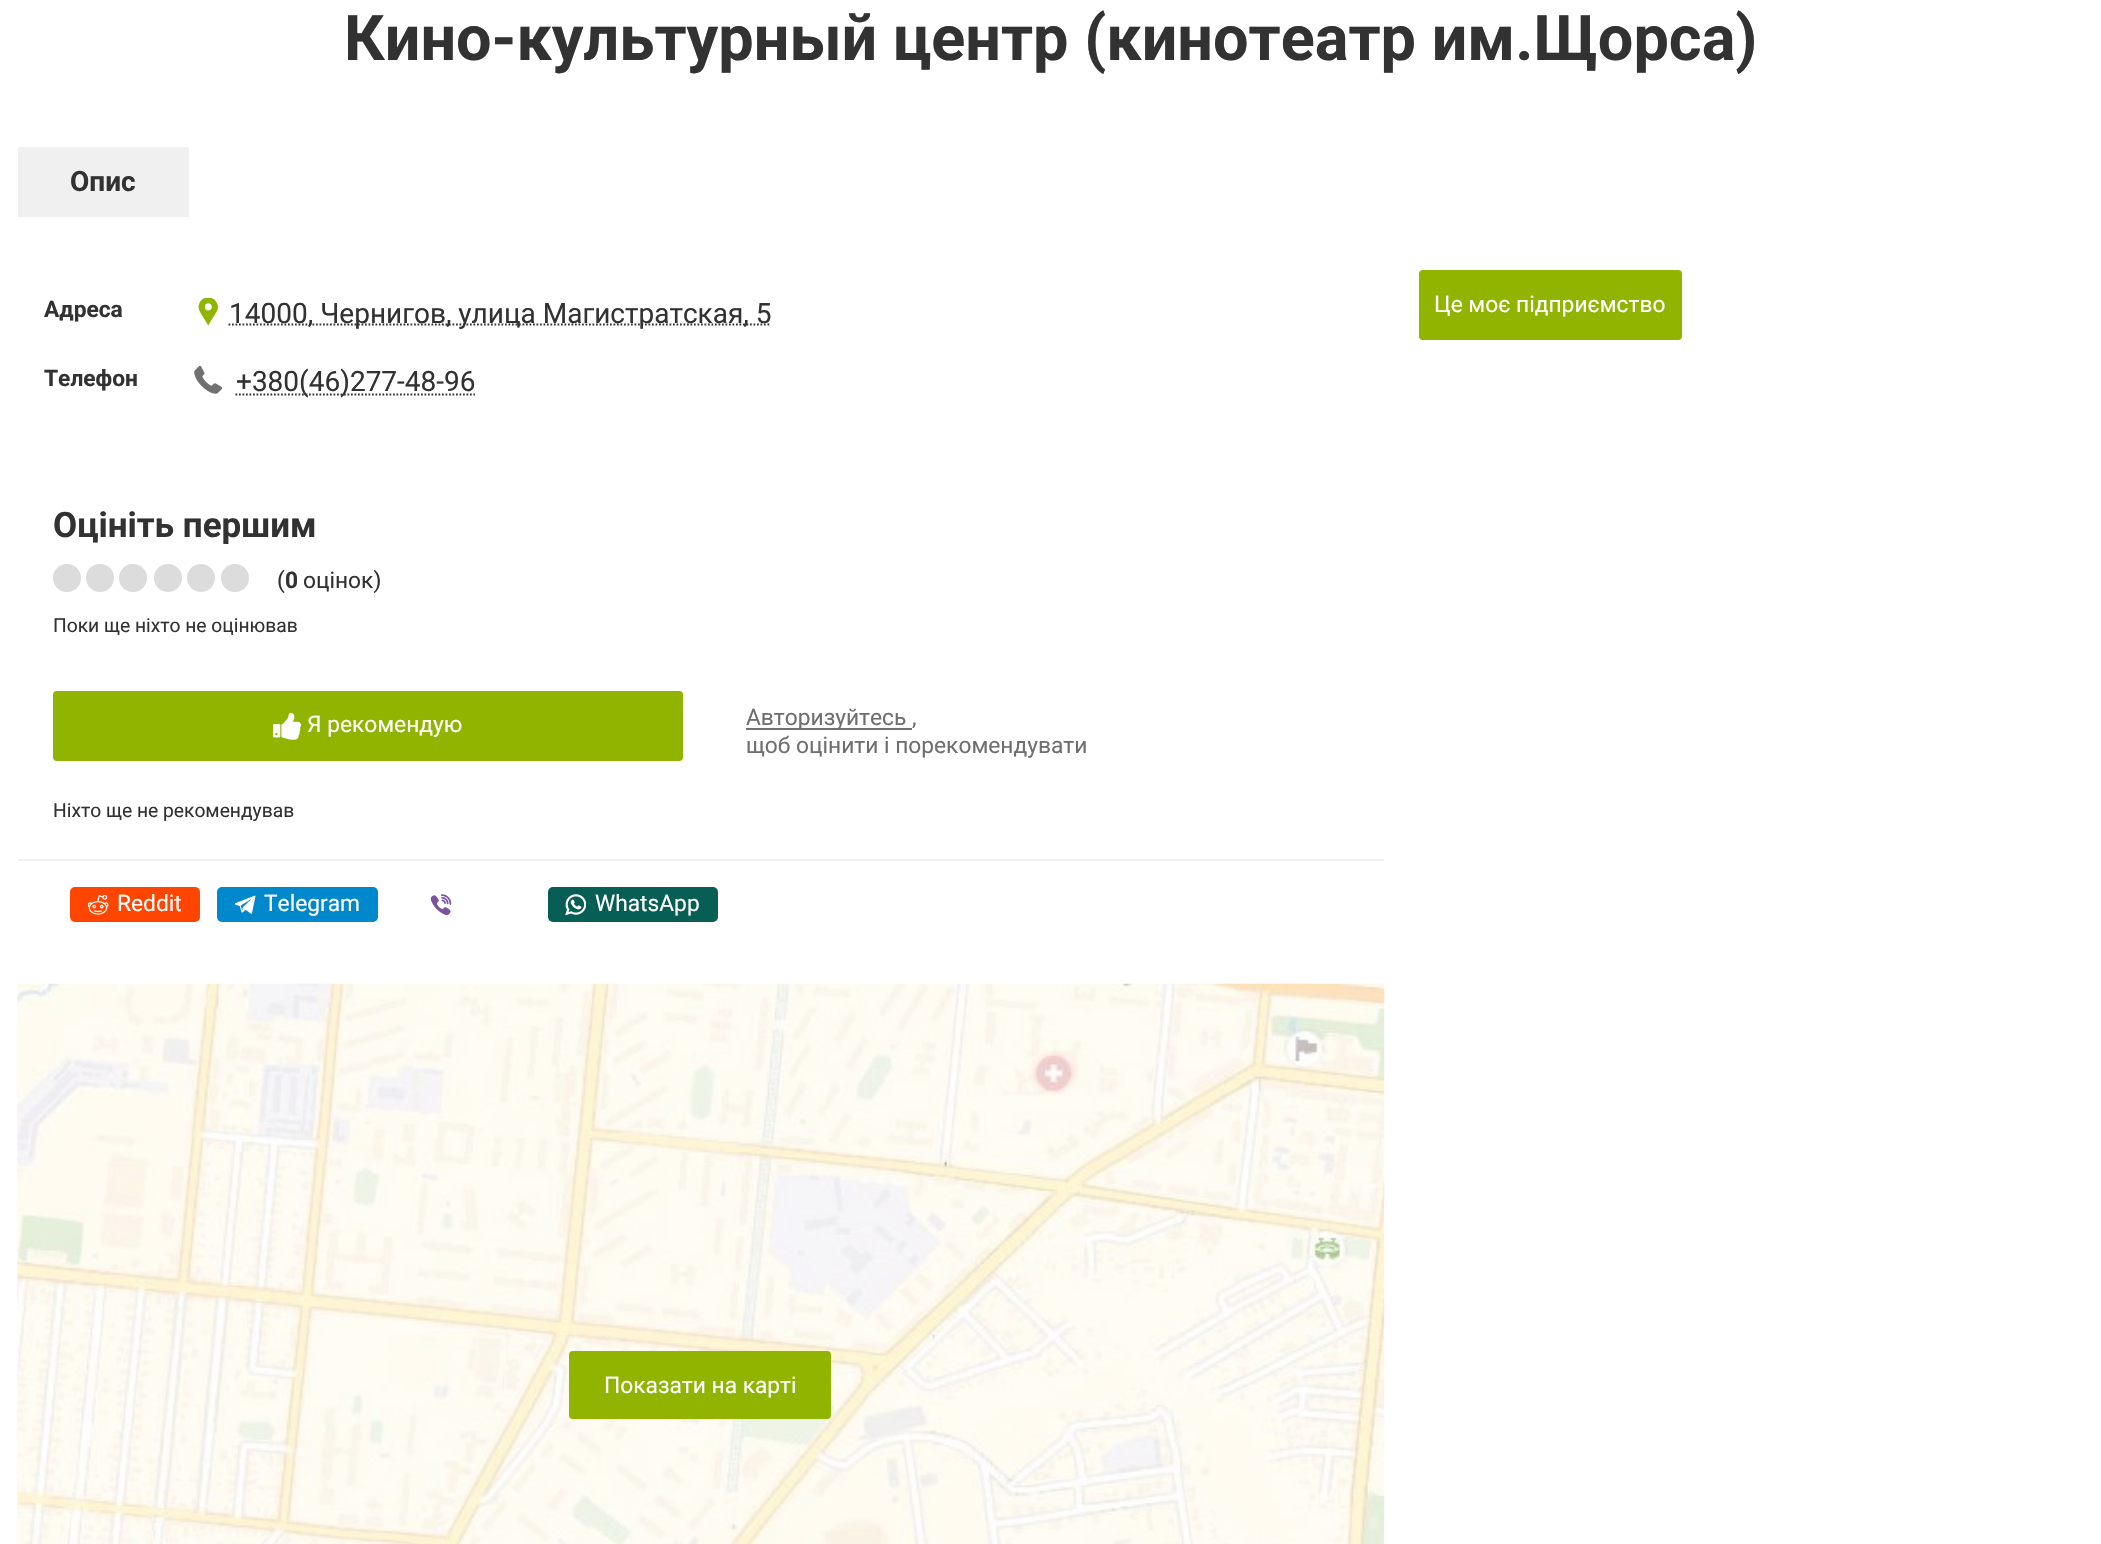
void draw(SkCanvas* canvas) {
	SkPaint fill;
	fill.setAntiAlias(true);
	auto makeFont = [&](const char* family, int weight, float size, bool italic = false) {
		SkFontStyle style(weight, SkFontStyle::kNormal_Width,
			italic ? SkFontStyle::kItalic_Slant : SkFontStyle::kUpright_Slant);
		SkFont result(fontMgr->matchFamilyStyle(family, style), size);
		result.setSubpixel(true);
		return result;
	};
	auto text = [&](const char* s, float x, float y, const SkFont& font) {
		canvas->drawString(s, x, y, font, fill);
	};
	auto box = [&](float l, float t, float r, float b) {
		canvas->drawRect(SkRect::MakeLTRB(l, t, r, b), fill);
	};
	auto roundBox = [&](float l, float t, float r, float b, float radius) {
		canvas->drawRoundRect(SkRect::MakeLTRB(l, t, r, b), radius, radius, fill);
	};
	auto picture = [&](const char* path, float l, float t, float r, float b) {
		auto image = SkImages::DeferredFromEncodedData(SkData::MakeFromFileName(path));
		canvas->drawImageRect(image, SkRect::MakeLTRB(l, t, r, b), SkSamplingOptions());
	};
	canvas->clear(0xFFFFFFFF);
	fill.setColor(0xFFF0F0F0);
	box(18, 147, 189, 217);
	picture("image0.png", 198, 298, 218, 326);
	fill.setStyle(SkPaint::kStroke_Style);
	fill.setStrokeWidth(1.8f);
	fill.setColor(0xFF323232);
	fill.setPathEffect(SkDashPathEffect::Make({{1.75f, 1.75f}}, 0));
	canvas->drawPath(SkPathBuilder().moveTo(228.5f, 324.5f).lineTo(771, 324.5f).detach(), fill);
	fill.setPathEffect(nullptr);
	picture("image1.png", 194, 366, 222, 394);
	fill.setPathEffect(SkDashPathEffect::Make({{1.75f, 1.75f}}, 0));
	canvas->drawPath(SkPathBuilder().moveTo(235.5f, 394.5f).lineTo(475, 394.5f).detach(), fill);
	fill.setPathEffect(nullptr);
	fill.setStyle(SkPaint::kFill_Style);
	fill.setColor(0xFFDCDCDC);
	canvas->drawCircle(67, 578, 14, fill);
	canvas->drawCircle(100, 578, 14, fill);
	canvas->drawCircle(133, 578, 14, fill);
	canvas->drawCircle(168, 578, 14, fill);
	canvas->drawCircle(201, 578, 14, fill);
	canvas->drawCircle(235, 578, 14, fill);
	fill.setColor(0xFF90B400);
	roundBox(53, 691, 683, 761, 4);
	picture("image2.png", 273, 712, 301, 740);
	fill.setColor(0xFF707070);
	box(746, 728, 912, 730);
	fill.setColor(0xFFF0F0F0);
	box(18, 859, 1384, 861);
	fill.setColor(0xFFFF4500);
	roundBox(70, 887, 200, 922, 5);
	picture("image3.png", 88, 894, 109, 915);
	fill.setColor(0xFF0088CC);
	roundBox(217, 887, 378, 922, 5);
	picture("image4.png", 235, 895, 256, 914);
	picture("image5.png", 431, 894, 452, 915);
	fill.setColor(0xFF075E54);
	roundBox(548, 887, 718, 922, 5);
	picture("image6.png", 565, 894, 586, 915);
	picture("image7.png", 17, 983, 1385, 1544);
	fill.setColor(0xFF90B400);
	roundBox(569, 1351, 831, 1419, 4);
	roundBox(1419, 270, 1682, 340, 4);
	auto font1 = makeFont("Roboto", 700, 63);
	fill.setColor(0xFF323232);
	text("Кино-культурный центр (кинотеатр им.Щорса)", 344, 60, font1);
	auto font2 = makeFont("Roboto", 700, 28);
	text("Опис", 70, 191, font2);
	auto font3 = makeFont("Roboto", 700, 22.75f);
	text("Адреса", 44, 317, font3);
	auto font4 = makeFont("Roboto", 400, 28);
	text("14000, Чернигов, улица Магистратская, 5", 229, 323, font4);
	text("Телефон", 44, 386, font3);
	text("+380(46)277-48-96", 236, 391, font4);
	auto font5 = makeFont("Roboto", 700, 35);
	text("Оцініть першим", 53, 537, font5);
	auto font6 = makeFont("Roboto", 400, 22.75f);
	text("(", 277, 588, font6);
	text("0", 285, 588, font3);
	text("оцінок)", 303, 588, font6);
	auto font7 = makeFont("Roboto", 400, 19.25f);
	text("Поки ще ніхто не оцінював", 53, 632, font7);
	fill.setColor(0xFFFFFFFF);
	text("Я рекомендую", 307, 732, font6);
	fill.setColor(0xFF323232);
	text("Ніхто ще не рекомендував", 53, 817, font7);
	fill.setColor(0xFF6F6F6F);
	text("Авторизуйтесь", 746, 725, font6);
	text(",", 912, 725, font6);
	text("щоб оцінити і порекомендувати", 746, 753, font6);
	fill.setColor(0xFFFFFFFF);
	text("Reddit", 117, 911, font6);
	text("Telegram", 264, 911, font6);
	text("WhatsApp", 595, 911, font6);
	text("Показати на карті", 604, 1393, font6);
	text("Це моє підприємство", 1434, 312, font6);
}
